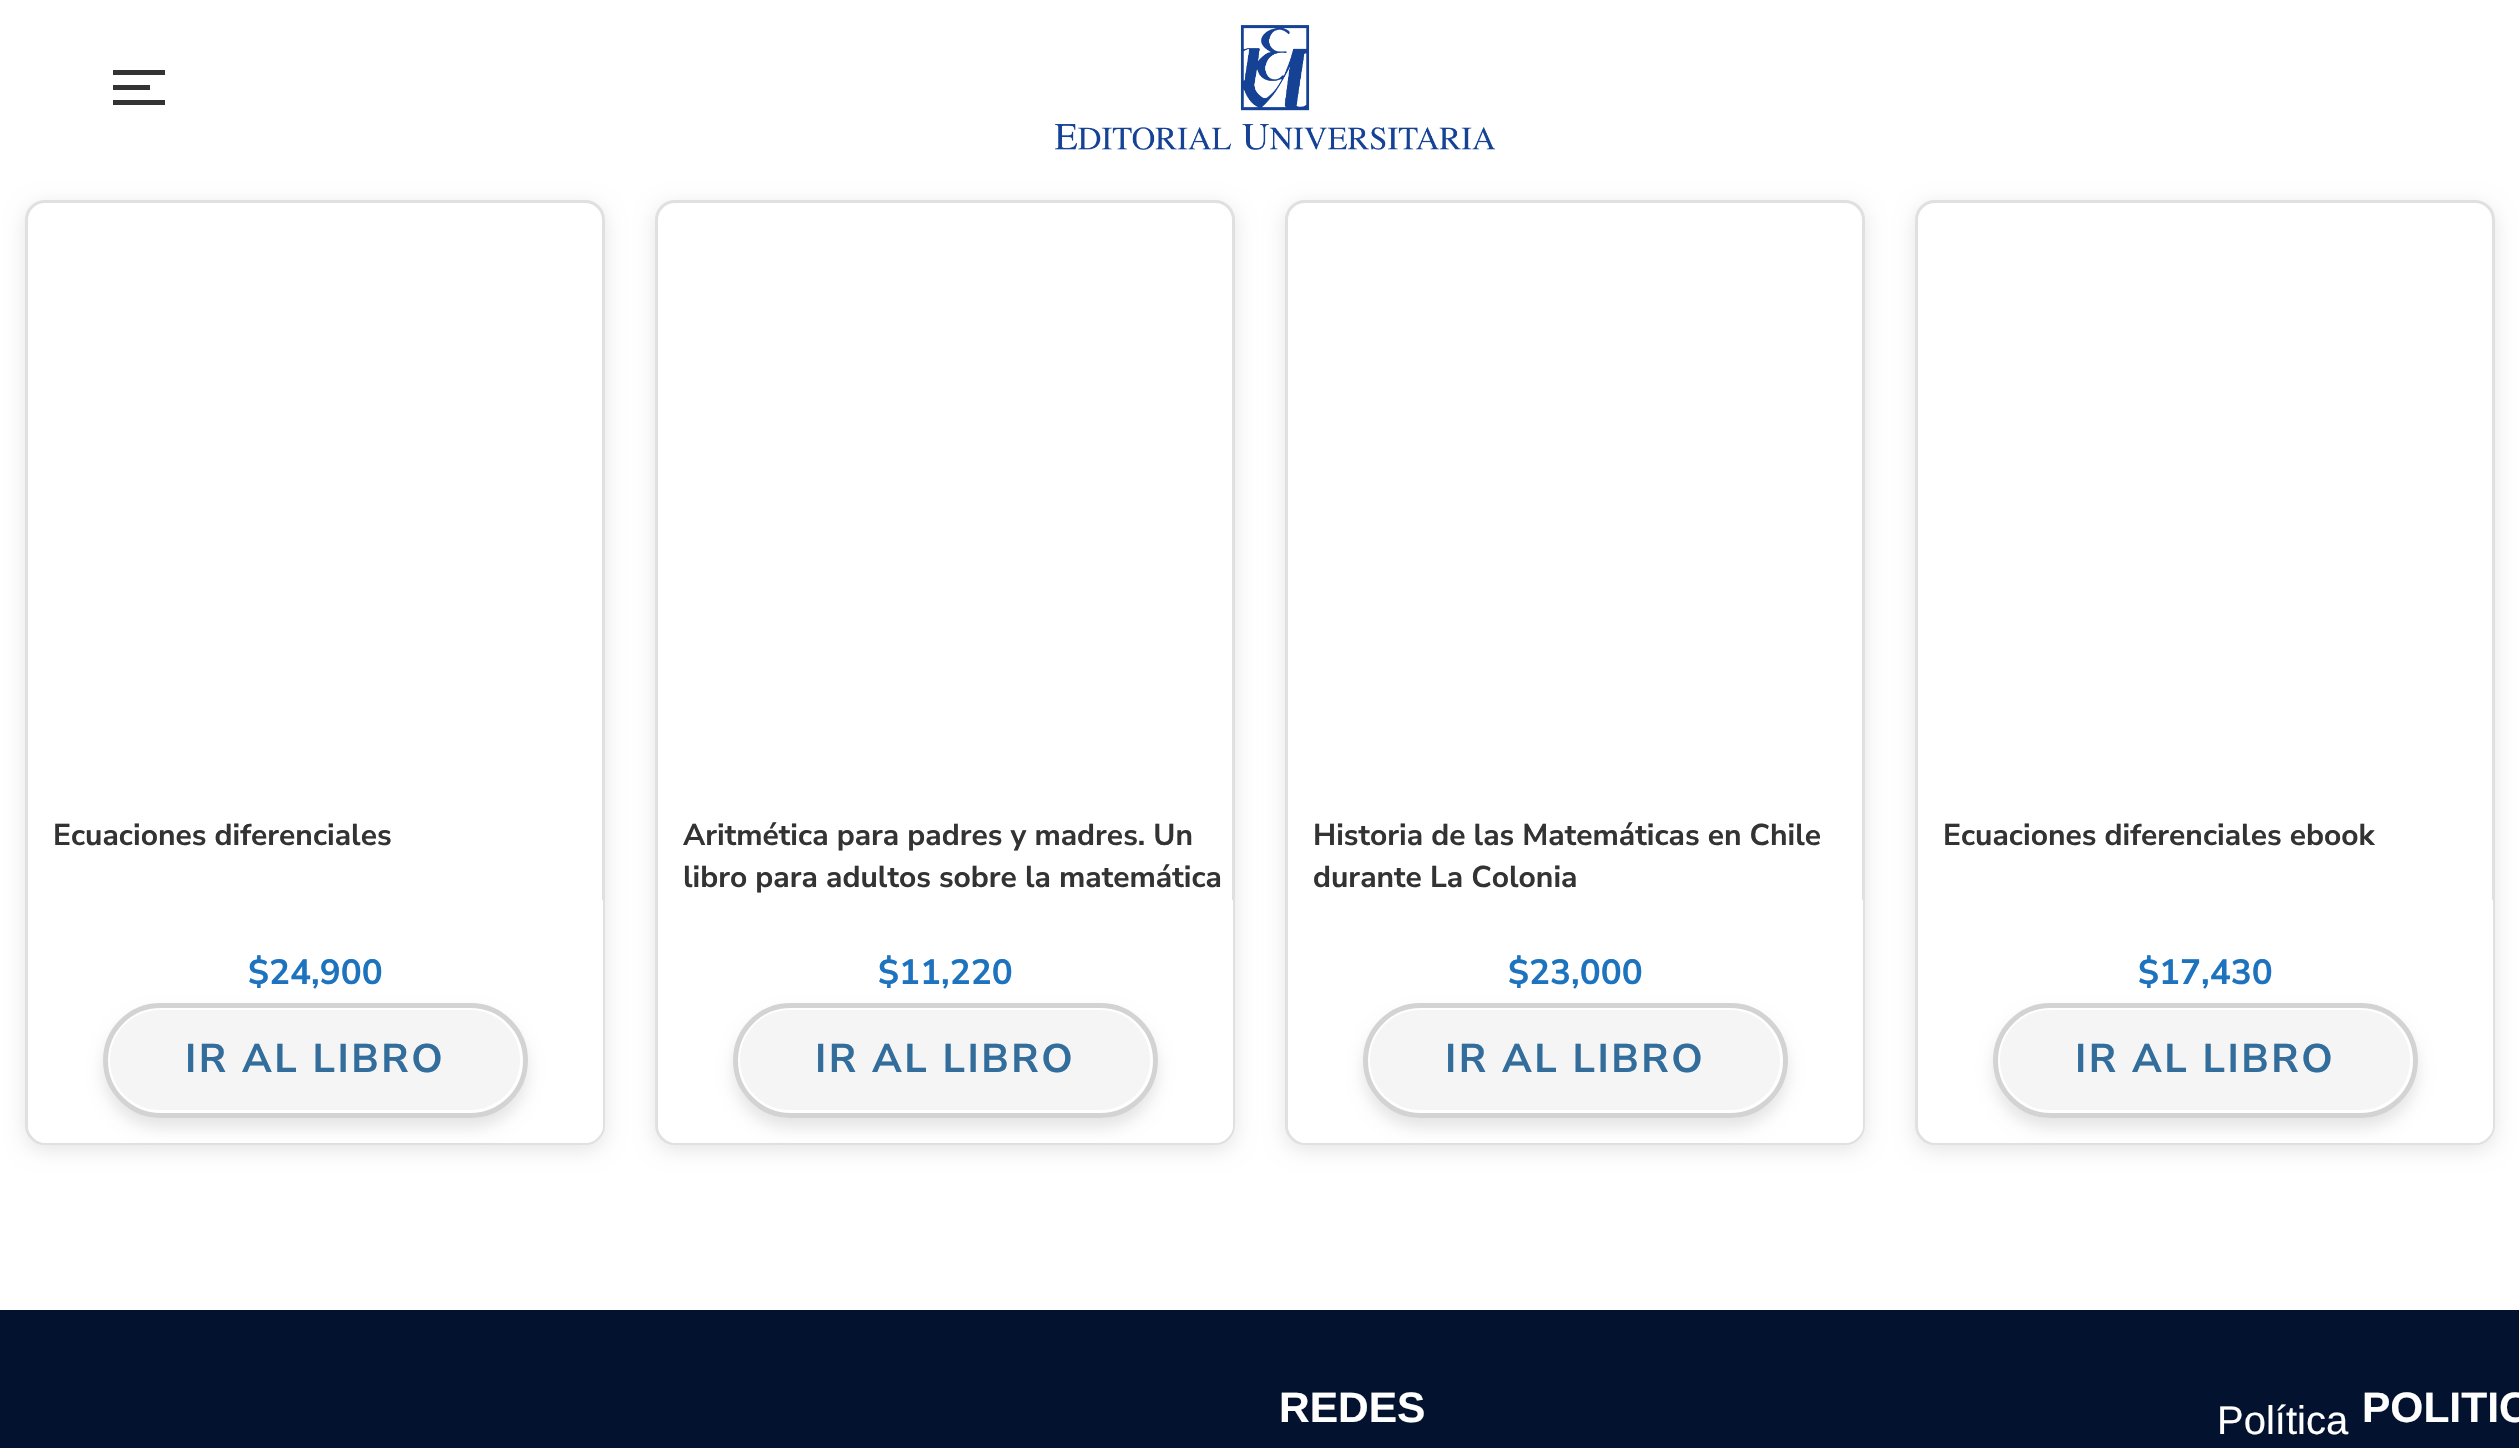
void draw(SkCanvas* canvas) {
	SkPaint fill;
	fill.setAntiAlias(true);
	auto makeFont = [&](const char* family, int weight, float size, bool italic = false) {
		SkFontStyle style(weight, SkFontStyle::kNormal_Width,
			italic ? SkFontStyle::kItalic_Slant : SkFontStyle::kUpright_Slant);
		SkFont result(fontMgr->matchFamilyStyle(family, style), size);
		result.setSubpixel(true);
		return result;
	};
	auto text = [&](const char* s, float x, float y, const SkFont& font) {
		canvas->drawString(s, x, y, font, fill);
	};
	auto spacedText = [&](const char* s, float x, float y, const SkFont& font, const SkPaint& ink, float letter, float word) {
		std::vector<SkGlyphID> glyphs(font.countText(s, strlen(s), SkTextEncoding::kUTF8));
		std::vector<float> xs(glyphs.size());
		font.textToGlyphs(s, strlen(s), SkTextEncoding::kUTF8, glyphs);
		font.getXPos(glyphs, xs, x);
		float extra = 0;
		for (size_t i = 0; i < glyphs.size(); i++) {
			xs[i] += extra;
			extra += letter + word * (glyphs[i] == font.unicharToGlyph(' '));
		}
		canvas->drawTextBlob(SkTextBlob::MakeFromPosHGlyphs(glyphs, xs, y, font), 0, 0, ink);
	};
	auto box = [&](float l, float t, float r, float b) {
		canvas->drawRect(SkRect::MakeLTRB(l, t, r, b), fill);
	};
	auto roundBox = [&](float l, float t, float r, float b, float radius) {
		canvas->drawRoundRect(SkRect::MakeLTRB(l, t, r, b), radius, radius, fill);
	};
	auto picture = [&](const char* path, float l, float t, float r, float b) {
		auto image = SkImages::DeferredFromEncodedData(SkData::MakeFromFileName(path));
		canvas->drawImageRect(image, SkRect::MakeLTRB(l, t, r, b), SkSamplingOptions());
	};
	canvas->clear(0xFFFFFFFF);
	fill.setColor(0xFF333333);
	box(113, 85, 150, 90);
	box(113, 70, 165, 75);
	box(113, 100, 165, 105);
	picture("image0.png", 1055, 25, 1495, 150);
	fill.setColor(0x1A000000);
	fill.setMaskFilter(SkMaskFilter::MakeBlur(kNormal_SkBlurStyle, 10));
	canvas->drawRoundRect(SkRect::MakeLTRB(25, 205, 605, 1150), 20, 20, fill);
	fill.setMaskFilter(nullptr);
	fill.setColor(0xFFFFFFFF);
	canvas->drawRoundRect(SkRect::MakeLTRB(26.5f, 201.5f, 603.5f, 1143.5f), 18.5f, 18.5f, fill);
	fill.setStyle(SkPaint::kStroke_Style);
	fill.setStrokeWidth(3);
	fill.setColor(0xFFE0E0E0);
	canvas->drawRoundRect(SkRect::MakeLTRB(26.5f, 201.5f, 603.5f, 1143.5f), 18.5f, 18.5f, fill);
	fill.setStyle(SkPaint::kFill_Style);
	fill.setColor(0xFFFFFFFF);
	canvas->drawPath(SkPathBuilder().moveTo(28, 900).lineTo(603, 900).lineTo(603, 1125).cubicTo(603, 1135, 595, 1143, 585, 1143).lineTo(46, 1143).cubicTo(36, 1143, 28, 1135, 28, 1125).close().detach(), fill);
	canvas->drawPath(SkPathBuilder(SkPathFillType::kEvenOdd).moveTo(31, 903).lineTo(600, 903).lineTo(600, 1135).cubicTo(602, 1132, 603, 1129, 603, 1125).lineTo(603, 900).lineTo(28, 900).lineTo(28, 1125).cubicTo(28, 1129, 29, 1132, 31, 1135).close().moveTo(585, 1143).cubicTo(589, 1143, 592, 1142, 595, 1140).lineTo(36, 1140).cubicTo(39, 1142, 42, 1143, 46, 1143).close().detach(), fill);
	fill.setColor(0xFFF5F5F5);
	roundBox(110, 1010, 520, 1110, 50);
	canvas->save();
	canvas->clipPath(SkPathBuilder(SkPathFillType::kEvenOdd).moveTo(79, 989).lineTo(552, 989).lineTo(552, 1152).lineTo(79, 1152).close().moveTo(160.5f, 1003).lineTo(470.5f, 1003).cubicTo(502.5f, 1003, 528, 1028.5f, 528, 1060.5f).cubicTo(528, 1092.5f, 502.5f, 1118, 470.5f, 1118).lineTo(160.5f, 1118).cubicTo(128.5f, 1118, 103, 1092.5f, 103, 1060.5f).cubicTo(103, 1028.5f, 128.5f, 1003, 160.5f, 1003).close().detach(), true);
	fill.setColor(0x1A000000);
	fill.setMaskFilter(SkMaskFilter::MakeBlur(kNormal_SkBlurStyle, 7.5f));
	canvas->drawRoundRect(SkRect::MakeLTRB(103, 1013, 528, 1128), 57.5f, 57.5f, fill);
	fill.setMaskFilter(nullptr);
	canvas->restore();
	fill.setStyle(SkPaint::kStroke_Style);
	fill.setStrokeWidth(5);
	fill.setColor(0xFFD3D3D3);
	canvas->drawRoundRect(SkRect::MakeLTRB(105.5f, 1005.5f, 525.5f, 1115.5f), 55, 55, fill);
	fill.setStyle(SkPaint::kFill_Style);
	fill.setColor(0x1A000000);
	fill.setMaskFilter(SkMaskFilter::MakeBlur(kNormal_SkBlurStyle, 10));
	canvas->drawRoundRect(SkRect::MakeLTRB(655, 205, 1235, 1150), 20, 20, fill);
	fill.setMaskFilter(nullptr);
	fill.setColor(0xFFFFFFFF);
	canvas->drawRoundRect(SkRect::MakeLTRB(656.5f, 201.5f, 1233.5f, 1143.5f), 18.5f, 18.5f, fill);
	fill.setStyle(SkPaint::kStroke_Style);
	fill.setStrokeWidth(3);
	fill.setColor(0xFFE0E0E0);
	canvas->drawRoundRect(SkRect::MakeLTRB(656.5f, 201.5f, 1233.5f, 1143.5f), 18.5f, 18.5f, fill);
	fill.setStyle(SkPaint::kFill_Style);
	fill.setColor(0xFFFFFFFF);
	canvas->drawPath(SkPathBuilder().moveTo(658, 900).lineTo(1233, 900).lineTo(1233, 1125).cubicTo(1233, 1135, 1225, 1143, 1215, 1143).lineTo(676, 1143).cubicTo(666, 1143, 658, 1135, 658, 1125).close().detach(), fill);
	canvas->drawPath(SkPathBuilder(SkPathFillType::kEvenOdd).moveTo(661, 903).lineTo(1230, 903).lineTo(1230, 1135).cubicTo(1232, 1132, 1233, 1129, 1233, 1125).lineTo(1233, 900).lineTo(658, 900).lineTo(658, 1125).cubicTo(658, 1129, 659, 1132, 661, 1135).close().moveTo(1215, 1143).cubicTo(1219, 1143, 1222, 1142, 1225, 1140).lineTo(666, 1140).cubicTo(669, 1142, 672, 1143, 676, 1143).close().detach(), fill);
	fill.setColor(0xFFF5F5F5);
	roundBox(740, 1010, 1150, 1110, 50);
	canvas->save();
	canvas->clipPath(SkPathBuilder(SkPathFillType::kEvenOdd).moveTo(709, 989).lineTo(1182, 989).lineTo(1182, 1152).lineTo(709, 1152).close().moveTo(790.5f, 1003).lineTo(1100.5f, 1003).cubicTo(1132.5f, 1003, 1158, 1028.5f, 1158, 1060.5f).cubicTo(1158, 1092.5f, 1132.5f, 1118, 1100.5f, 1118).lineTo(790.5f, 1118).cubicTo(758.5f, 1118, 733, 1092.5f, 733, 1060.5f).cubicTo(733, 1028.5f, 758.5f, 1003, 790.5f, 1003).close().detach(), true);
	fill.setColor(0x1A000000);
	fill.setMaskFilter(SkMaskFilter::MakeBlur(kNormal_SkBlurStyle, 7.5f));
	canvas->drawRoundRect(SkRect::MakeLTRB(733, 1013, 1158, 1128), 57.5f, 57.5f, fill);
	fill.setMaskFilter(nullptr);
	canvas->restore();
	fill.setStyle(SkPaint::kStroke_Style);
	fill.setStrokeWidth(5);
	fill.setColor(0xFFD3D3D3);
	canvas->drawRoundRect(SkRect::MakeLTRB(735.5f, 1005.5f, 1155.5f, 1115.5f), 55, 55, fill);
	fill.setStyle(SkPaint::kFill_Style);
	fill.setColor(0x1A000000);
	fill.setMaskFilter(SkMaskFilter::MakeBlur(kNormal_SkBlurStyle, 10));
	canvas->drawRoundRect(SkRect::MakeLTRB(1285, 205, 1865, 1150), 20, 20, fill);
	fill.setMaskFilter(nullptr);
	fill.setColor(0xFFFFFFFF);
	canvas->drawRoundRect(SkRect::MakeLTRB(1286.5f, 201.5f, 1863.5f, 1143.5f), 18.5f, 18.5f, fill);
	fill.setStyle(SkPaint::kStroke_Style);
	fill.setStrokeWidth(3);
	fill.setColor(0xFFE0E0E0);
	canvas->drawRoundRect(SkRect::MakeLTRB(1286.5f, 201.5f, 1863.5f, 1143.5f), 18.5f, 18.5f, fill);
	fill.setStyle(SkPaint::kFill_Style);
	fill.setColor(0xFFFFFFFF);
	canvas->drawPath(SkPathBuilder().moveTo(1288, 900).lineTo(1863, 900).lineTo(1863, 1125).cubicTo(1863, 1135, 1855, 1143, 1845, 1143).lineTo(1306, 1143).cubicTo(1296, 1143, 1288, 1135, 1288, 1125).close().detach(), fill);
	canvas->drawPath(SkPathBuilder(SkPathFillType::kEvenOdd).moveTo(1291, 903).lineTo(1860, 903).lineTo(1860, 1135).cubicTo(1862, 1132, 1863, 1129, 1863, 1125).lineTo(1863, 900).lineTo(1288, 900).lineTo(1288, 1125).cubicTo(1288, 1129, 1289, 1132, 1291, 1135).close().moveTo(1845, 1143).cubicTo(1849, 1143, 1852, 1142, 1855, 1140).lineTo(1296, 1140).cubicTo(1299, 1142, 1302, 1143, 1306, 1143).close().detach(), fill);
	fill.setColor(0xFFF5F5F5);
	roundBox(1370, 1010, 1780, 1110, 50);
	canvas->save();
	canvas->clipPath(SkPathBuilder(SkPathFillType::kEvenOdd).moveTo(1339, 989).lineTo(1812, 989).lineTo(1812, 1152).lineTo(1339, 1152).close().moveTo(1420.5f, 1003).lineTo(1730.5f, 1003).cubicTo(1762.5f, 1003, 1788, 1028.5f, 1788, 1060.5f).cubicTo(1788, 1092.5f, 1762.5f, 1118, 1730.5f, 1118).lineTo(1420.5f, 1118).cubicTo(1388.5f, 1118, 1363, 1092.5f, 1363, 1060.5f).cubicTo(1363, 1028.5f, 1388.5f, 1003, 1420.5f, 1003).close().detach(), true);
	fill.setColor(0x1A000000);
	fill.setMaskFilter(SkMaskFilter::MakeBlur(kNormal_SkBlurStyle, 7.5f));
	canvas->drawRoundRect(SkRect::MakeLTRB(1363, 1013, 1788, 1128), 57.5f, 57.5f, fill);
	fill.setMaskFilter(nullptr);
	canvas->restore();
	fill.setStyle(SkPaint::kStroke_Style);
	fill.setStrokeWidth(5);
	fill.setColor(0xFFD3D3D3);
	canvas->drawRoundRect(SkRect::MakeLTRB(1365.5f, 1005.5f, 1785.5f, 1115.5f), 55, 55, fill);
	fill.setStyle(SkPaint::kFill_Style);
	fill.setColor(0x1A000000);
	fill.setMaskFilter(SkMaskFilter::MakeBlur(kNormal_SkBlurStyle, 10));
	canvas->drawRoundRect(SkRect::MakeLTRB(1915, 205, 2495, 1150), 20, 20, fill);
	fill.setMaskFilter(nullptr);
	fill.setColor(0xFFFFFFFF);
	canvas->drawRoundRect(SkRect::MakeLTRB(1916.5f, 201.5f, 2493.5f, 1143.5f), 18.5f, 18.5f, fill);
	fill.setStyle(SkPaint::kStroke_Style);
	fill.setStrokeWidth(3);
	fill.setColor(0xFFE0E0E0);
	canvas->drawRoundRect(SkRect::MakeLTRB(1916.5f, 201.5f, 2493.5f, 1143.5f), 18.5f, 18.5f, fill);
	fill.setStyle(SkPaint::kFill_Style);
	fill.setColor(0xFFFFFFFF);
	canvas->drawPath(SkPathBuilder().moveTo(1918, 900).lineTo(2493, 900).lineTo(2493, 1125).cubicTo(2493, 1135, 2485, 1143, 2475, 1143).lineTo(1936, 1143).cubicTo(1926, 1143, 1918, 1135, 1918, 1125).close().detach(), fill);
	canvas->drawPath(SkPathBuilder(SkPathFillType::kEvenOdd).moveTo(1921, 903).lineTo(2490, 903).lineTo(2490, 1135).cubicTo(2492, 1132, 2493, 1129, 2493, 1125).lineTo(2493, 900).lineTo(1918, 900).lineTo(1918, 1125).cubicTo(1918, 1129, 1919, 1132, 1921, 1135).close().moveTo(2475, 1143).cubicTo(2479, 1143, 2482, 1142, 2485, 1140).lineTo(1926, 1140).cubicTo(1929, 1142, 1932, 1143, 1936, 1143).close().detach(), fill);
	fill.setColor(0xFFF5F5F5);
	roundBox(2000, 1010, 2410, 1110, 50);
	canvas->save();
	canvas->clipPath(SkPathBuilder(SkPathFillType::kEvenOdd).moveTo(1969, 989).lineTo(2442, 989).lineTo(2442, 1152).lineTo(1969, 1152).close().moveTo(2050.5f, 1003).lineTo(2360.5f, 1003).cubicTo(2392.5f, 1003, 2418, 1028.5f, 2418, 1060.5f).cubicTo(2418, 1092.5f, 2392.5f, 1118, 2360.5f, 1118).lineTo(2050.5f, 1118).cubicTo(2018.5f, 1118, 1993, 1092.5f, 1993, 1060.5f).cubicTo(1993, 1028.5f, 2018.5f, 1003, 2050.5f, 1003).close().detach(), true);
	fill.setColor(0x1A000000);
	fill.setMaskFilter(SkMaskFilter::MakeBlur(kNormal_SkBlurStyle, 7.5f));
	canvas->drawRoundRect(SkRect::MakeLTRB(1993, 1013, 2418, 1128), 57.5f, 57.5f, fill);
	fill.setMaskFilter(nullptr);
	canvas->restore();
	fill.setStyle(SkPaint::kStroke_Style);
	fill.setStrokeWidth(5);
	fill.setColor(0xFFD3D3D3);
	canvas->drawRoundRect(SkRect::MakeLTRB(1995.5f, 1005.5f, 2415.5f, 1115.5f), 55, 55, fill);
	fill.setStyle(SkPaint::kFill_Style);
	fill.setColor(0xFF03122E);
	box(0, 1310, 2519, 1448);
	auto font1 = makeFont("Nunito Sans", 700, 30);
	fill.setColor(0xFF333333);
	text("Ecuaciones diferenciales", 53, 845, font1);
	auto font2 = makeFont("Nunito Sans", 700, 35);
	fill.setColor(0xFF1E73BE);
	text("$24,900", 248, 984, font2);
	auto font3 = makeFont("Nunito Sans", 700, 40);
	fill.setColor(0xFF326D9B);
	spacedText("IR AL LIBRO", 185, 1072, font3, fill, 2.5f, 0);
	fill.setColor(0xFF333333);
	text("Aritmética para padres y madres. Un", 683, 845, font1);
	text("libro para adultos sobre la matemática", 683, 887, font1);
	fill.setColor(0xFF1E73BE);
	text("$11,220", 878, 984, font2);
	fill.setColor(0xFF326D9B);
	spacedText("IR AL LIBRO", 815, 1072, font3, fill, 2.5f, 0);
	fill.setColor(0xFF333333);
	text("Historia de las Matemáticas en Chile", 1313, 845, font1);
	text("durante La Colonia", 1313, 887, font1);
	fill.setColor(0xFF1E73BE);
	text("$23,000", 1508, 984, font2);
	fill.setColor(0xFF326D9B);
	spacedText("IR AL LIBRO", 1445, 1072, font3, fill, 2.5f, 0);
	fill.setColor(0xFF333333);
	text("Ecuaciones diferenciales ebook", 1943, 845, font1);
	fill.setColor(0xFF1E73BE);
	text("$17,430", 2138, 984, font2);
	fill.setColor(0xFF326D9B);
	spacedText("IR AL LIBRO", 2075, 1072, font3, fill, 2.5f, 0);
	auto font4 = makeFont("Liberation Sans", 700, 42.5f);
	fill.setColor(0xFFFFFFFF);
	text("REDES", 1279, 1422, font4);
	auto font5 = makeFont("Liberation Sans", 400, 40);
	text("Política", 2217, 1434, font5);
	text("POLITIC", 2362, 1422, font4);
}
